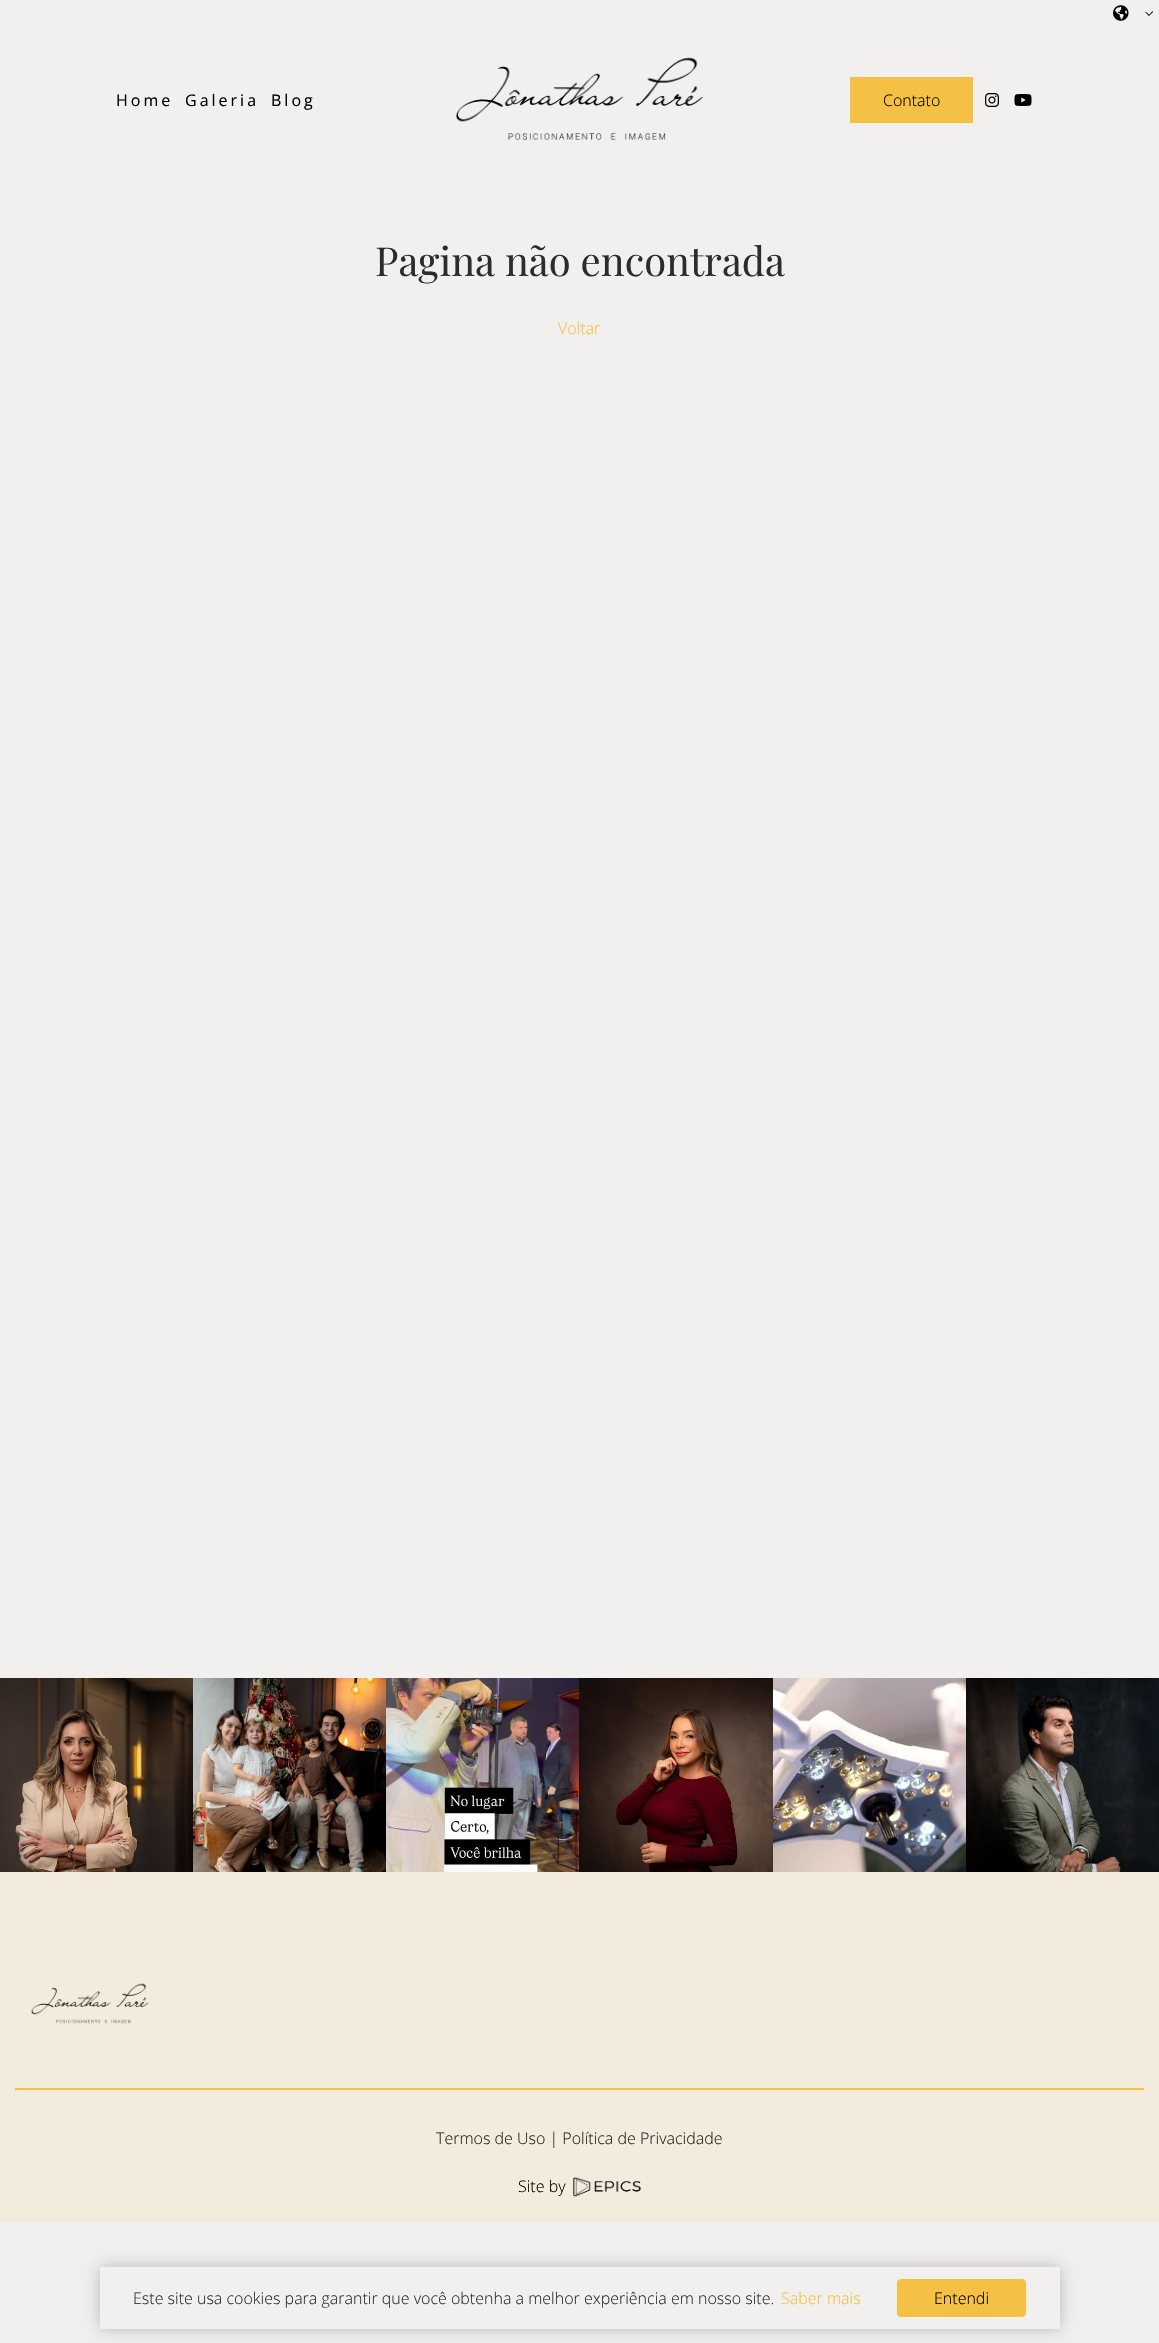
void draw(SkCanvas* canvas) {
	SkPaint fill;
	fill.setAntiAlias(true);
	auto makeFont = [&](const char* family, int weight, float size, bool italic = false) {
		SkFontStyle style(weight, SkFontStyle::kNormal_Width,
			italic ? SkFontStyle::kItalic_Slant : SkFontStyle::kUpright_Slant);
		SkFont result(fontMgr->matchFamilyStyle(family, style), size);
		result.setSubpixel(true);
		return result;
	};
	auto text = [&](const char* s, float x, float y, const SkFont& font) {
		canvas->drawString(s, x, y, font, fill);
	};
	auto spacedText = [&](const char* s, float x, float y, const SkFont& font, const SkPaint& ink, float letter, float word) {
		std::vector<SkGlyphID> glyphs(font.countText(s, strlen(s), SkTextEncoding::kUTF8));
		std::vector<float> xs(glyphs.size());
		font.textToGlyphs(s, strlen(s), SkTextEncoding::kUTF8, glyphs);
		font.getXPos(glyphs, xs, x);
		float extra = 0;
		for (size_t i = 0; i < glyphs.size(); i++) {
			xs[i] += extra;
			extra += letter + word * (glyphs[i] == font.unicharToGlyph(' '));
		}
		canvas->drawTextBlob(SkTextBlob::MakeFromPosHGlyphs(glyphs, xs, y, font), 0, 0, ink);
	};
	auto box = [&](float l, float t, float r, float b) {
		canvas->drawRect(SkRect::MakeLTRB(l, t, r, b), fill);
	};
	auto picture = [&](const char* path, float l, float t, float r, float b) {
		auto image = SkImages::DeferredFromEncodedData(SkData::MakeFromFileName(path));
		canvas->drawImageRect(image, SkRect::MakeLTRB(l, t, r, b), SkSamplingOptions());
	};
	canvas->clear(0xFFF2F0EE);
	picture("image0.png", 455, 57, 704, 140);
	picture("image1.png", 1113, 5, 1129, 21);
	fill.setColor(0xFF000000);
	canvas->drawPath(SkPathBuilder().moveTo(1149, 16).lineTo(1145, 12).lineTo(1146, 12).lineTo(1149, 14.5f).close().detach(), fill);
	canvas->drawPath(SkPathBuilder().moveTo(1149, 16).lineTo(1148.5f, 15.5f).lineTo(1152.5f, 11).lineTo(1153, 12).close().detach(), fill);
	fill.setColor(0xFFF5C145);
	box(850, 77, 973, 123);
	picture("image2.png", 985, 93, 999, 107);
	picture("image3.png", 1014, 94, 1032, 106);
	fill.setColor(0xFFF3ECDC);
	box(0, 1872, 1159, 2222);
	picture("image4.png", 0, 1678, 193, 1872);
	picture("image5.png", 193, 1678, 386, 1872);
	picture("image6.png", 386, 1678, 579, 1872);
	picture("image7.png", 579, 1678, 773, 1872);
	picture("image8.png", 773, 1678, 966, 1872);
	picture("image9.png", 966, 1678, 1159, 1872);
	fill.setColor(0xFFF5C145);
	box(15, 2088, 1144, 2090);
	picture("image10.png", 31, 1983, 149, 2024);
	picture("image11.png", 573, 2177, 641, 2197);
	canvas->save();
	canvas->clipPath(SkPathBuilder(SkPathFillType::kEvenOdd).moveTo(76, 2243).lineTo(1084, 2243).lineTo(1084, 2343).lineTo(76, 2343).close().moveTo(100, 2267).lineTo(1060, 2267).lineTo(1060, 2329).lineTo(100, 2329).close().detach(), true);
	fill.setColor(0x3B000000);
	fill.setMaskFilter(SkMaskFilter::MakeBlur(kNormal_SkBlurStyle, 7.5f));
	canvas->drawRect(SkRect::MakeLTRB(100, 2267, 1060, 2329), fill);
	fill.setMaskFilter(nullptr);
	canvas->restore();
	fill.setColor(0xFFF5C145);
	canvas->drawRoundRect(SkRect::MakeLTRB(897.5f, 2279.5f, 1025.5f, 2316.5f), 3.5f, 3.5f, fill);
	fill.setStyle(SkPaint::kStroke_Style);
	fill.setStrokeWidth(1);
	canvas->drawRoundRect(SkRect::MakeLTRB(897.5f, 2279.5f, 1025.5f, 2316.5f), 3.5f, 3.5f, fill);
	auto font1 = makeFont("Open Sans", 400, 16);
	fill.setStyle(SkPaint::kFill_Style);
	fill.setColor(0xFF000000);
	spacedText("Home", 116, 106, font1, fill, 3, 0);
	spacedText("Galeria", 185, 106, font1, fill, 3, 0);
	spacedText("Blog", 271, 106, font1, fill, 3, 0);
	auto font2 = makeFont("Open Sans", 300, 16);
	text("Contato", 883, 106, font2);
	auto font3 = makeFont("Playfair Display", 400, 40);
	fill.setColor(0xFF2C2C2C);
	text("Pagina não encontrada", 375, 276, font3);
	fill.setColor(0xFFF5C145);
	text("Voltar", 558, 334, font2);
	fill.setColor(0xFF5E5045);
	text("89", 264, 1781, font2);
	fill.setColor(0xFFCCBD9A);
	text("10", 844, 1781, font2);
	fill.setColor(0xFFAFB1C3);
	text("1", 897, 1781, font2);
	fill.setColor(0xFF91827B);
	text("25", 1037, 1781, font2);
	fill.setColor(0xFF222222);
	text("Termos de Uso | Política de Privacidade", 436, 2144, font2);
	fill.setColor(0xFF000000);
	text("Site by", 518, 2192, font2);
	fill.setColor(0xFF2C2C2C);
	text("Este site usa cookies para garantir que você obtenha a melhor experiência em nosso site.", 133, 2304, font2);
	fill.setColor(0xFFF5C145);
	text("Saber mais", 781, 2304, font2);
	fill.setColor(0xFF000000);
	text("Entendi", 934, 2304, font2);
}
